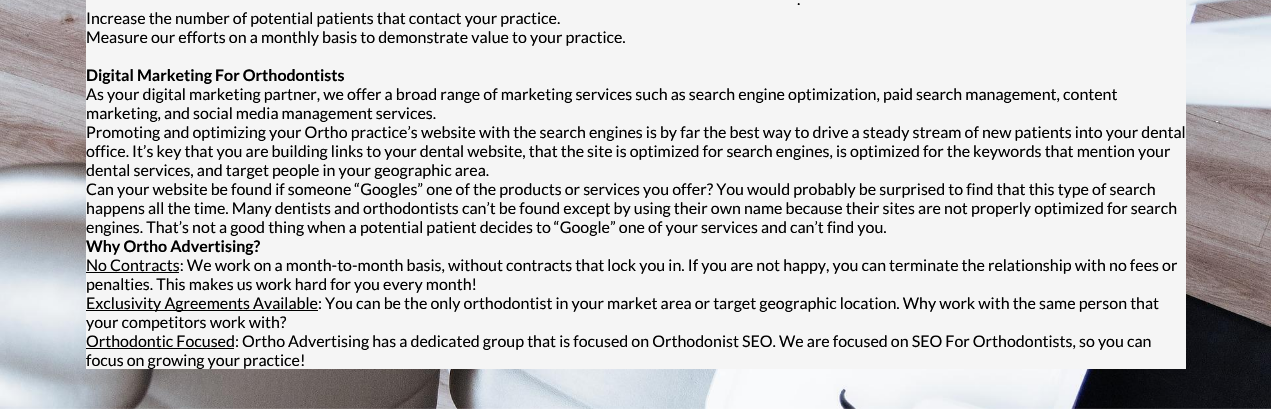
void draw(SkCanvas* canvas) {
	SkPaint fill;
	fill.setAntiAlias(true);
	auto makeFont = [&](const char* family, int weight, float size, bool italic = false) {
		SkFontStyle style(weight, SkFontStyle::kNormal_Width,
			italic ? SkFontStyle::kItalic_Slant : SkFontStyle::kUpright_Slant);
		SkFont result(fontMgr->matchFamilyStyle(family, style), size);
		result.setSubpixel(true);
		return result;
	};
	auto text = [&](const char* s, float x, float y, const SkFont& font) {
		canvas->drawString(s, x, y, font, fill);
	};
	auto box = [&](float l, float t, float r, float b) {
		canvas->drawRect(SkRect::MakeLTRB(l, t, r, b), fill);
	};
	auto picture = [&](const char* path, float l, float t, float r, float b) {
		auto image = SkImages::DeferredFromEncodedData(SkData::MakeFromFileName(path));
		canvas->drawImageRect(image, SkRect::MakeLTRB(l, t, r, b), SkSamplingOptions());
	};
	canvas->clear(0xFFFFFFFF);
	picture("image0.png", 0, 0, 1271, 409);
	fill.setColor(0xFFF5F5F5);
	box(86, 0, 1186, 369);
	fill.setColor(0xFF000000);
	box(86, 272, 179, 273);
	box(86, 310, 318, 311);
	box(86, 348, 234, 349);
	auto font1 = makeFont("Lato", 400, 16);
	text(".", 797, 5, font1);
	text("Increase the number of potential patients that contact your practice.", 86, 24, font1);
	text("Measure our efforts on a monthly basis to demonstrate value to your practice.", 86, 43, font1);
	auto font2 = makeFont("Lato", 700, 16);
	text("Digital Marketing For Orthodontists", 86, 81, font2);
	text("As your digital marketing partner, we offer a broad range of marketing services such as search engine optimization, paid search management, content", 86, 100, font1);
	text("marketing, and social media management services.", 86, 119, font1);
	text("Promoting and optimizing your Ortho practice’s website with the search engines is by far the best way to drive a steady stream of new patients into your dental", 86, 138, font1);
	text("office. It’s key that you are building links to your dental website, that the site is optimized for search engines, is optimized for the keywords that mention your", 86, 157, font1);
	text("dental services, and target people in your geographic area.", 86, 176, font1);
	text("Can your website be found if someone “Googles” one of the products or services you offer? You would probably be surprised to find that this type of search", 86, 195, font1);
	text("happens all the time. Many dentists and orthodontists can’t be found except by using their own name because their sites are not properly optimized for search", 86, 214, font1);
	text("engines. That’s not a good thing when a potential patient decides to “Google” one of your services and can’t find you.", 86, 233, font1);
	text("Why Ortho Advertising?", 86, 252, font2);
	text("No Contracts: We work on a month-to-month basis, without contracts that lock you in. If you are not happy, you can terminate the relationship with no fees or", 86, 271, font1);
	text("penalties. This makes us work hard for you every month!", 86, 290, font1);
	text("Exclusivity Agreements Available: You can be the only orthodontist in your market area or target geographic location. Why work with the same person that", 86, 309, font1);
	text("your competitors work with?", 86, 328, font1);
	text("Orthodontic Focused: Ortho Advertising has a dedicated group that is focused on Orthodonist SEO. We are focused on SEO For Orthodontists, so you can", 86, 347, font1);
	text("focus on growing your practice!", 86, 366, font1);
}
